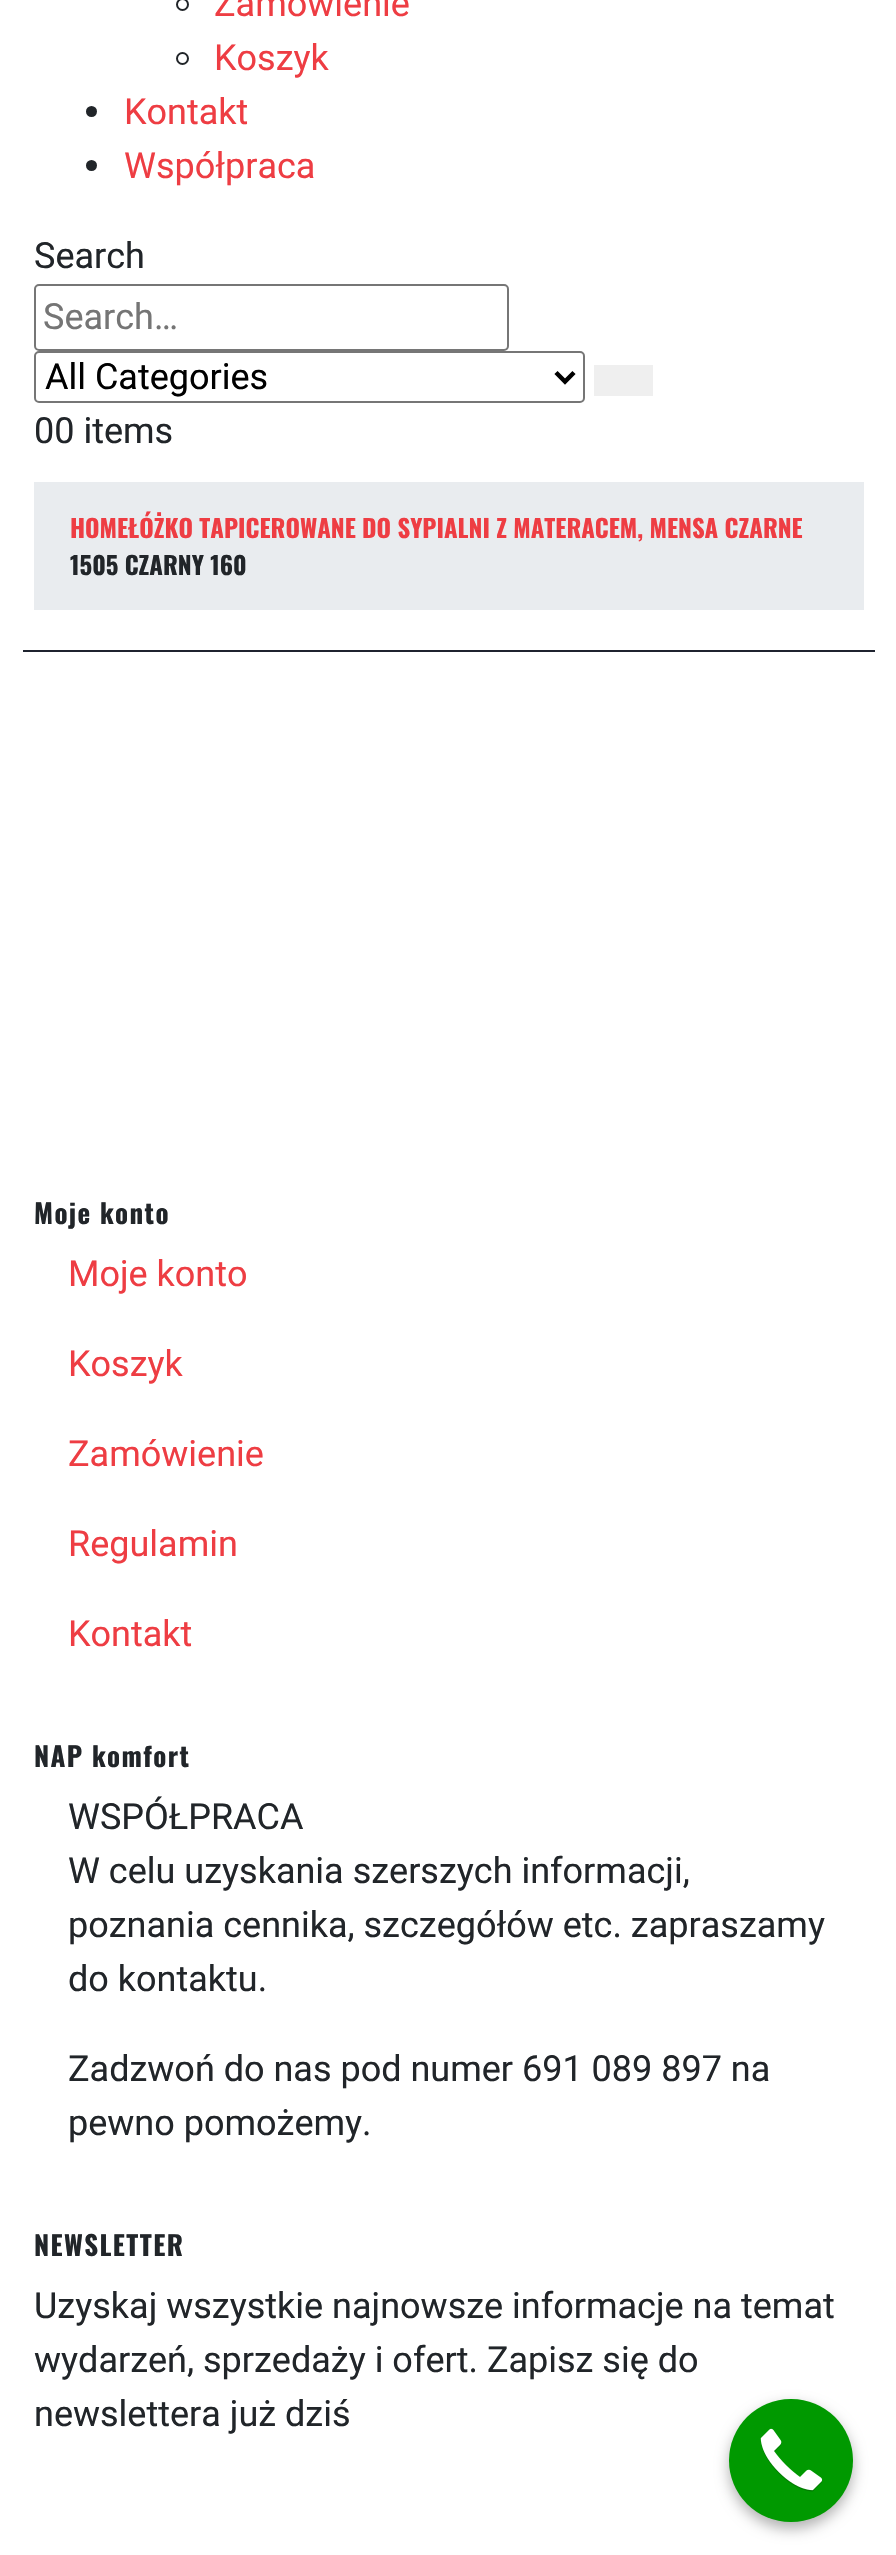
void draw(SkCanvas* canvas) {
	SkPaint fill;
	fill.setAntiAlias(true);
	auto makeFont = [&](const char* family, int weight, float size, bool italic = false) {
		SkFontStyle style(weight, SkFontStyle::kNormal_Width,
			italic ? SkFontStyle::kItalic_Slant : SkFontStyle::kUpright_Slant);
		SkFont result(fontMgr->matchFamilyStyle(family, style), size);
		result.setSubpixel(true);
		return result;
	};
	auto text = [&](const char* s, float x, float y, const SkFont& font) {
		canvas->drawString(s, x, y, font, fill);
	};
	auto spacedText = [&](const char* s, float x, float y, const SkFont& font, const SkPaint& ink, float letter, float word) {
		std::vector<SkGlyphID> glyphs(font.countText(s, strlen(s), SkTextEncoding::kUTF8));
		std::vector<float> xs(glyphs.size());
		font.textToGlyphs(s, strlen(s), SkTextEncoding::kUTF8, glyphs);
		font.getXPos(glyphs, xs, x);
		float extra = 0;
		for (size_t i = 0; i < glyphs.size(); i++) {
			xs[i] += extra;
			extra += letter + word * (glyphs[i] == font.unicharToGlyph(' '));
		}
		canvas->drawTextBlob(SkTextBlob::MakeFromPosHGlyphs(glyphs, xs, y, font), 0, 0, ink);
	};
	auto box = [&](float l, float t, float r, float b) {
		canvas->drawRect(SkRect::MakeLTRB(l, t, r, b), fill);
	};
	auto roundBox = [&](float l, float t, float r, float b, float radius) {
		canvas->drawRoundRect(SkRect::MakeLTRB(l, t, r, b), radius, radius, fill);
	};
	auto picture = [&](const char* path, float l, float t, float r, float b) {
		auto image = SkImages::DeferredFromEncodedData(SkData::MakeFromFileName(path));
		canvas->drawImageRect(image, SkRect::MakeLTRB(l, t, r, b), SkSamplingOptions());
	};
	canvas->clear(0xFFFFFFFF);
	fill.setStyle(SkPaint::kStroke_Style);
	fill.setStrokeWidth(2);
	fill.setColor(0xFF212529);
	canvas->drawCircle(182.5f, 4.5f, 5.5f, fill);
	canvas->drawCircle(182.5f, 58.5f, 5.5f, fill);
	fill.setStyle(SkPaint::kFill_Style);
	canvas->drawCircle(91.5f, 111.5f, 5.5f, fill);
	canvas->drawCircle(91.5f, 165.5f, 5.5f, fill);
	fill.setStyle(SkPaint::kStroke_Style);
	fill.setColor(0xFF767676);
	canvas->drawRoundRect(SkRect::MakeLTRB(35, 285, 508, 350), 4, 4, fill);
	canvas->drawRoundRect(SkRect::MakeLTRB(35, 352, 584, 402), 4, 4, fill);
	fill.setStrokeWidth(4.5f);
	fill.setColor(0xFF000000);
	canvas->drawPath(SkPathBuilder().moveTo(556, 372.5f).lineTo(565, 381.5f).lineTo(574, 372.5f).detach(), fill);
	fill.setStyle(SkPaint::kFill_Style);
	fill.setColor(0xFFEFEFEF);
	box(594, 365, 653, 396);
	fill.setColor(0xFFE9ECEF);
	box(34, 482, 864, 610);
	fill.setColor(0xFF1F232F);
	box(23, 650, 875, 652);
	fill.setColor(0x4D000000);
	fill.setMaskFilter(SkMaskFilter::MakeBlur(kNormal_SkBlurStyle, 7));
	canvas->drawRoundRect(SkRect::MakeLTRB(729, 2405, 853, 2529), 62, 62, fill);
	fill.setMaskFilter(nullptr);
	fill.setColor(0xFF009900);
	roundBox(729, 2399, 853, 2522, 61.5f);
	picture("image0.png", 760, 2428, 823, 2492);
	auto font1 = makeFont("Roboto", 400, 36);
	fill.setColor(0xFFEE3D43);
	text("Zamówienie", 214, 16, font1);
	text("Koszyk", 214, 70, font1);
	text("Kontakt", 124, 124, font1);
	text("Współpraca", 124, 178, font1);
	fill.setColor(0xFF212529);
	text("Search", 34, 268, font1);
	fill.setColor(0xFF757575);
	text("Search…", 43, 329, font1);
	fill.setColor(0xFF000000);
	text("All Categories", 45, 389, font1);
	fill.setColor(0xFF212529);
	text("00 items", 34, 443, font1);
	auto font2 = makeFont("Oswald", 700, 24.75f);
	fill.setColor(0xFFEE3D43);
	text("HOMEŁÓŻKO TAPICEROWANE DO SYPIALNI Z MATERACEM, MENSA CZARNE", 70, 538, font2);
	fill.setColor(0xFF212529);
	text("1505 CZARNY 160", 70, 575, font2);
	auto font3 = makeFont("Oswald", 700, 27);
	spacedText("Moje konto", 34, 1224, font3, fill, 1.4f, 0);
	fill.setColor(0xFFEE3D43);
	text("Moje konto", 68, 1286, font1);
	text("Koszyk", 68, 1376, font1);
	text("Zamówienie", 68, 1466, font1);
	text("Regulamin", 68, 1556, font1);
	text("Kontakt", 68, 1646, font1);
	fill.setColor(0xFF212529);
	spacedText("NAP komfort", 34, 1767, font3, fill, 1.4f, 0);
	text("WSPÓŁPRACA", 68, 1829, font1);
	text("W celu uzyskania szerszych informacji,", 68, 1883, font1);
	text("poznania cennika, szczegółów etc. zapraszamy", 68, 1937, font1);
	text("do kontaktu.", 68, 1991, font1);
	text("Zadzwoń do nas pod numer 691 089 897 na", 68, 2081, font1);
	text("pewno pomożemy.", 68, 2135, font1);
	spacedText("NEWSLETTER", 34, 2256, font3, fill, 1.4f, 0);
	text("Uzyskaj wszystkie najnowsze informacje na temat", 34, 2318, font1);
	text("wydarzeń, sprzedaży i ofert. Zapisz się do", 34, 2372, font1);
	text("newslettera już dziś", 34, 2426, font1);
}
